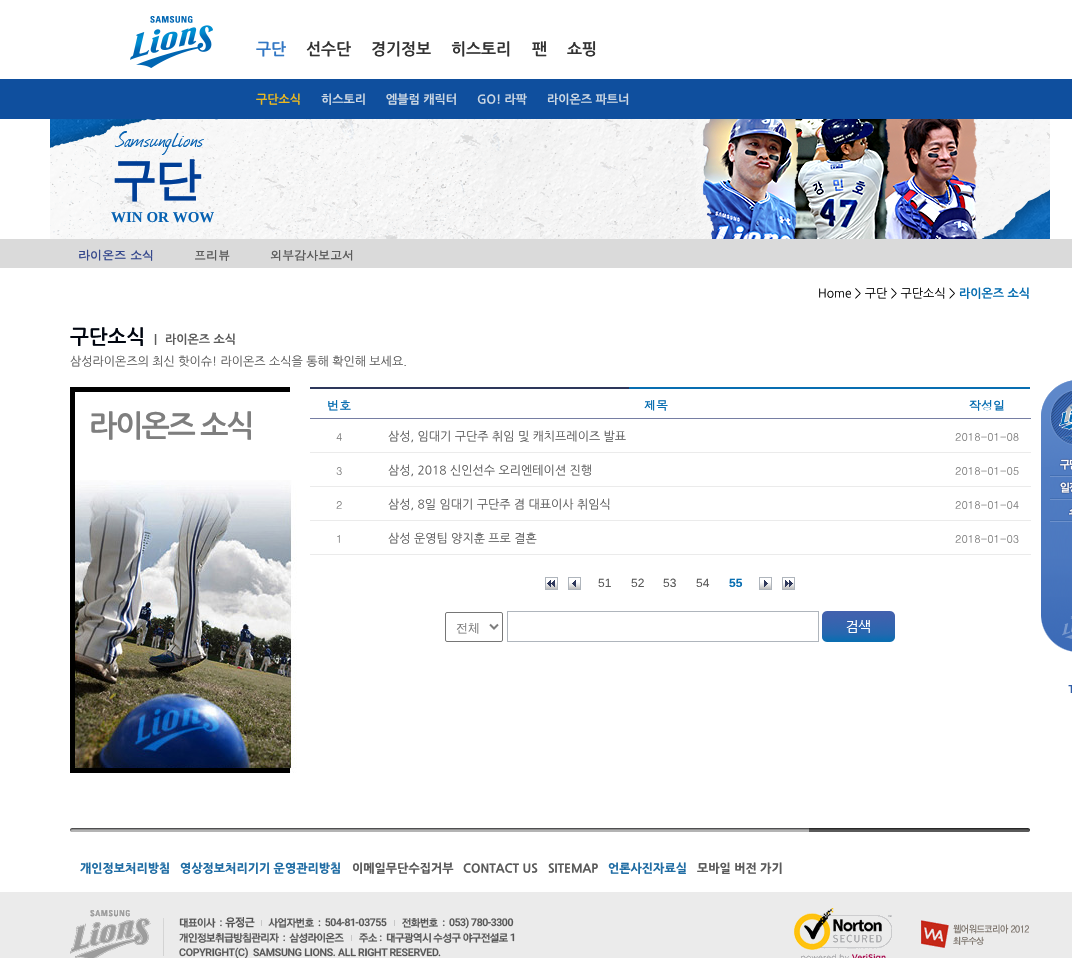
void draw(SkCanvas* canvas) {
	SkPaint fill;
	fill.setAntiAlias(true);
	auto makeFont = [&](const char* family, int weight, float size, bool italic = false) {
		SkFontStyle style(weight, SkFontStyle::kNormal_Width,
			italic ? SkFontStyle::kItalic_Slant : SkFontStyle::kUpright_Slant);
		SkFont result(fontMgr->matchFamilyStyle(family, style), size);
		result.setSubpixel(true);
		return result;
	};
	auto text = [&](const char* s, float x, float y, const SkFont& font) {
		canvas->drawString(s, x, y, font, fill);
	};
	auto spacedText = [&](const char* s, float x, float y, const SkFont& font, const SkPaint& ink, float letter, float word) {
		std::vector<SkGlyphID> glyphs(font.countText(s, strlen(s), SkTextEncoding::kUTF8));
		std::vector<float> xs(glyphs.size());
		font.textToGlyphs(s, strlen(s), SkTextEncoding::kUTF8, glyphs);
		font.getXPos(glyphs, xs, x);
		float extra = 0;
		for (size_t i = 0; i < glyphs.size(); i++) {
			xs[i] += extra;
			extra += letter + word * (glyphs[i] == font.unicharToGlyph(' '));
		}
		canvas->drawTextBlob(SkTextBlob::MakeFromPosHGlyphs(glyphs, xs, y, font), 0, 0, ink);
	};
	auto box = [&](float l, float t, float r, float b) {
		canvas->drawRect(SkRect::MakeLTRB(l, t, r, b), fill);
	};
	auto picture = [&](const char* path, float l, float t, float r, float b) {
		auto image = SkImages::DeferredFromEncodedData(SkData::MakeFromFileName(path));
		canvas->drawImageRect(image, SkRect::MakeLTRB(l, t, r, b), SkSamplingOptions());
	};
	canvas->clear(0xFFFFFFFF);
	fill.setColor(0xFF0F4F9E);
	box(0, 79, 1072, 119);
	picture("image0.png", 130, 16, 213, 68);
	picture("image1.png", 50, 119, 1050, 239);
	picture("image2.png", 114, 131, 204, 155);
	fill.setColor(0xFFDADADA);
	box(0, 239, 1072, 268);
	picture("image3.png", 75, 480, 297, 773);
	fill.setColor(0xFF000000);
	box(70, 387, 290, 392);
	box(70, 768, 290, 773);
	box(70, 387, 75, 773);
	picture("image4.png", 310, 387, 1030, 389);
	fill.setColor(0xFF767EA3);
	box(310, 418, 1031, 419);
	fill.setColor(0xFFEBEBEB);
	box(310, 452, 1031, 453);
	box(310, 486, 1031, 487);
	box(310, 520, 1031, 521);
	box(310, 554, 1031, 555);
	picture("image5.png", 545, 577, 558, 590);
	picture("image6.png", 568, 577, 581, 590);
	picture("image7.png", 759, 577, 772, 590);
	picture("image8.png", 782, 577, 795, 590);
	fill.setStyle(SkPaint::kStroke_Style);
	fill.setStrokeWidth(1);
	fill.setColor(0xFF767676);
	canvas->drawRoundRect(SkRect::MakeLTRB(445.5f, 612.5f, 502.5f, 641.5f), 1.5f, 1.5f, fill);
	fill.setStrokeWidth(2);
	fill.setColor(0xFF7E7E7E);
	canvas->drawPath(SkPathBuilder().moveTo(490, 624.5f).lineTo(494, 628.5f).lineTo(498, 624.5f).detach(), fill);
	fill.setStrokeWidth(1);
	fill.setColor(0xFFAFB5BC);
	canvas->drawRect(SkRect::MakeLTRB(507.5f, 611.5f, 818.5f, 641.5f), fill);
	picture("image9.png", 822, 611, 895, 642);
	picture("image10.png", 1041, 380, 1072, 652);
	picture("image12.png", 1059, 403, 1072, 443);
	picture("image11.png", 1041, 380, 1072, 442);
	picture("image13.png", 1050, 458, 1072, 477);
	picture("image14.png", 1050, 481, 1072, 500);
	picture("image15.png", 1050, 508, 1072, 522);
	picture("image16.png", 1068, 685, 1072, 693);
	picture("image17.png", 70, 828, 1030, 832);
	fill.setStyle(SkPaint::kFill_Style);
	fill.setColor(0xFFEBEBEB);
	box(0, 892, 1072, 958);
	picture("image18.png", 70, 910, 515, 958);
	picture("image19.png", 794, 908, 892, 958);
	picture("image20.png", 921, 920, 1029, 948);
	auto font1 = makeFont("NanumGothic", 700, 16);
	fill.setColor(0xFF3277C4);
	text("구단", 256, 54, font1);
	auto font2 = makeFont("NanumGothic", 700, 12);
	fill.setColor(0xFFEAB821);
	text("구단소식", 256, 103, font2);
	fill.setColor(0xFFCDD8E4);
	text("히스토리", 321, 103, font2);
	text("엠블럼 캐릭터", 386, 103, font2);
	text("GO! 라팍", 477, 103, font2);
	text("라이온즈 파트너", 547, 103, font2);
	fill.setColor(0xFF333333);
	text("선수단", 306, 54, font1);
	text("경기정보", 371, 54, font1);
	text("히스토리", 451, 54, font1);
	text("팬", 532, 54, font1);
	text("쇼핑", 567, 54, font1);
	auto font3 = makeFont("WenQuanYi Zen Hei", 700, 46);
	fill.setColor(0xFF003E96);
	spacedText("구단", 111, 195, font3, fill, -2, 0);
	auto font4 = makeFont("Liberation Serif", 700, 15);
	fill.setColor(0xFF0762B2);
	text("WIN OR WOW", 111, 222, font4);
	auto font5 = makeFont("Dotum", 700, 12);
	fill.setColor(0xFF34478C);
	text("라이온즈 소식", 78, 260, font5);
	fill.setColor(0xFF5B5B5B);
	text("프리뷰", 194, 260, font5);
	text("외부감사보고서", 270, 260, font5);
	auto font6 = makeFont("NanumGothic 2", 400, 12);
	fill.setColor(0xFF000000);
	text("Home > 구단 > 구단소식 >", 818, 297, font6);
	fill.setColor(0xFF086EB1);
	text("라이온즈 소식", 959, 297, font2);
	auto font7 = makeFont("NanumGothic", 700, 20);
	fill.setColor(0xFF00050F);
	text("구단소식", 70, 343, font7);
	fill.setColor(0xFF5B5B5B);
	text("|", 154, 343, font2);
	text("라이온즈 소식", 165, 343, font2);
	text("삼성라이온즈의 최신 핫이슈! 라이온즈 소식을 통해 확인해 보세요.", 70, 365, font6);
	auto font8 = makeFont("NanumGothic", 700, 30);
	fill.setColor(0xFF7E7E7E);
	spacedText("라이온즈 소식", 89, 435, font8, fill, -2, 0);
	fill.setColor(0xFF086EB1);
	text("번호", 327, 410, font5);
	text("제목", 644, 410, font5);
	text("작성일", 969, 410, font5);
	auto font9 = makeFont("Dotum", 400, 11);
	fill.setColor(0xFF7E7E7E);
	text("4", 336, 441, font9);
	auto font10 = makeFont("NanumGothic", 400, 12);
	fill.setColor(0xFF5B5B5B);
	text("삼성, 임대기 구단주 취임 및 캐치프레이즈 발표", 388, 440, font10);
	fill.setColor(0xFF7E7E7E);
	text("2018-01-08", 955, 441, font9);
	text("3", 336, 475, font9);
	fill.setColor(0xFF5B5B5B);
	text("삼성, 2018 신인선수 오리엔테이션 진행", 388, 474, font10);
	fill.setColor(0xFF7E7E7E);
	text("2018-01-05", 955, 475, font9);
	text("2", 336, 509, font9);
	fill.setColor(0xFF5B5B5B);
	text("삼성, 8일 임대기 구단주 겸 대표이사 취임식", 388, 508, font10);
	fill.setColor(0xFF7E7E7E);
	text("2018-01-04", 955, 509, font9);
	text("1", 336, 543, font9);
	fill.setColor(0xFF5B5B5B);
	text("삼성 운영팀 양지훈 프로 결혼", 388, 542, font10);
	fill.setColor(0xFF7E7E7E);
	text("2018-01-03", 955, 543, font9);
	auto font11 = makeFont("Liberation Sans", 400, 12);
	fill.setColor(0xFF5B5B5B);
	text("51", 598, 587, font11);
	text("52", 631, 587, font11);
	text("53", 663, 587, font11);
	text("54", 696, 587, font11);
	auto font12 = makeFont("Liberation Sans", 700, 12);
	fill.setColor(0xFF086EB1);
	text("55", 729, 587, font12);
	auto font13 = makeFont("WenQuanYi Zen Hei", 500, 12);
	fill.setColor(0xFF7E7E7E);
	text("전체", 456, 632, font13);
	auto font14 = makeFont("NanumGothic", 800, 12);
	fill.setColor(0xFF206DA4);
	text("개인정보처리방침", 80, 872, font14);
	text("영상정보처리기기 운영관리방침", 180, 872, font14);
	fill.setColor(0xFF5B5B5B);
	text("이메일무단수집거부", 352, 872, font14);
	text("CONTACT US", 463, 872, font14);
	text("SITEMAP", 548, 872, font14);
	fill.setColor(0xFF206DA4);
	text("언론사진자료실", 608, 872, font14);
	fill.setColor(0xFF5B5B5B);
	text("모바일 버전 가기", 697, 872, font14);
}
